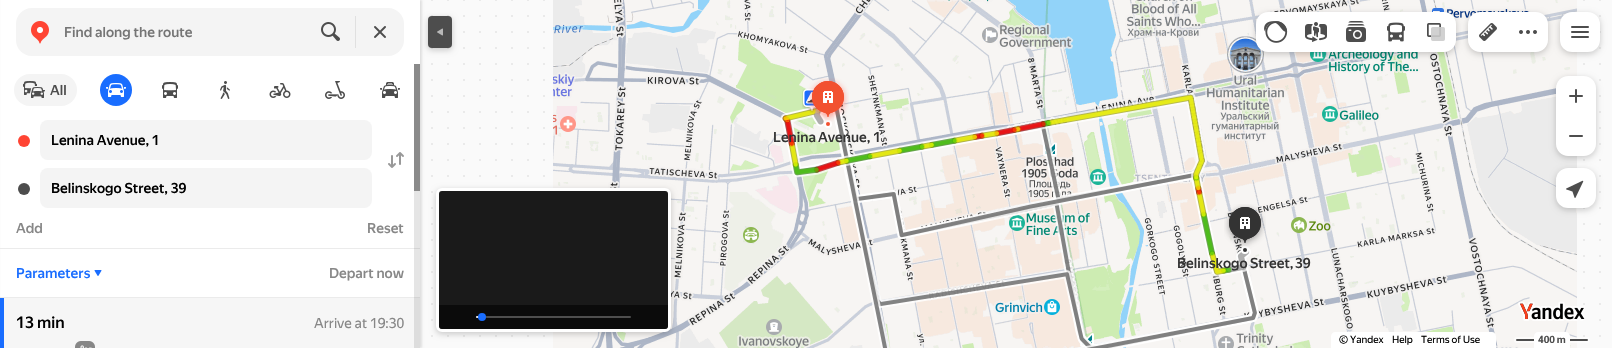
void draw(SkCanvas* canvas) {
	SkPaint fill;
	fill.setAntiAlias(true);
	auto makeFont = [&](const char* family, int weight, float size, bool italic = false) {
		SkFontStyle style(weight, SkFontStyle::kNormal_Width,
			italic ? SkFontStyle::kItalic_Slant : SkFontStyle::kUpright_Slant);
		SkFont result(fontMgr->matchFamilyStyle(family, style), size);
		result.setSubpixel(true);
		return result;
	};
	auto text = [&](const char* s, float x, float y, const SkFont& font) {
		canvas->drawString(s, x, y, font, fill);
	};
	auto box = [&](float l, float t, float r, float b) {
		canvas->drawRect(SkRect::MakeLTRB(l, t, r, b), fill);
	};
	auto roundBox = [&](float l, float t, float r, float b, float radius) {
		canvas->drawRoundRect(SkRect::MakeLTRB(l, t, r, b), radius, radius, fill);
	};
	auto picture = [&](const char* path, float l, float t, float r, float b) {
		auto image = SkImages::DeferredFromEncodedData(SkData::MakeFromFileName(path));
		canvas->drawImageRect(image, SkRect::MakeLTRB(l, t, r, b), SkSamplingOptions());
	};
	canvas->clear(0xFFFFFFFF);
	picture("image0.png", 420, 0, 1612, 348);
	fill.setColor(0x1A000000);
	fill.setMaskFilter(SkMaskFilter::MakeBlur(kNormal_SkBlurStyle, 1));
	canvas->drawRect(SkRect::MakeLTRB(2, 0, 422, 348), fill);
	fill.setMaskFilter(nullptr);
	fill.setColor(0x33000000);
	fill.setMaskFilter(SkMaskFilter::MakeBlur(kNormal_SkBlurStyle, 3));
	canvas->drawRoundRect(SkRect::MakeLTRB(428, 18, 452, 50), 4, 4, fill);
	fill.setMaskFilter(nullptr);
	fill.setColor(0xFFFFFFFF);
	box(1, 0, 420, 297);
	fill.setColor(0xFFF4F4F4);
	roundBox(16, 8, 404, 56, 16);
	picture("image1.png", 31, 21, 49, 44);
	picture("image2.png", 321, 22, 340, 41);
	fill.setColor(0xFFE0E0E0);
	box(355, 16, 356, 48);
	picture("image3.png", 374, 26, 386, 38);
	picture("image29.png", 1065, 0, 1321, 233);
	picture("image30.png", 1321, 0, 1577, 233);
	fill.setColor(0x33000000);
	fill.setMaskFilter(SkMaskFilter::MakeBlur(kNormal_SkBlurStyle, 3));
	canvas->drawRoundRect(SkRect::MakeLTRB(1256, 14, 1456, 54), 12, 12, fill);
	fill.setMaskFilter(nullptr);
	fill.setColor(0xFFFFFFFF);
	canvas->drawPath(SkPathBuilder().moveTo(1268, 12).lineTo(1296, 12).lineTo(1296, 52).lineTo(1268, 52).cubicTo(1261.5f, 52, 1256, 46.5f, 1256, 40).lineTo(1256, 24).cubicTo(1256, 17.5f, 1261.5f, 12, 1268, 12).close().detach(), fill);
	picture("image4.png", 1264, 21, 1288, 43);
	box(1296, 12, 1416, 52);
	picture("image5.png", 1305, 22, 1327, 42);
	canvas->drawPath(SkPathBuilder().moveTo(1416, 12).lineTo(1444, 12).cubicTo(1450.5f, 12, 1456, 17.5f, 1456, 24).lineTo(1456, 40).cubicTo(1456, 46.5f, 1450.5f, 52, 1444, 52).lineTo(1416, 52).close().detach(), fill);
	picture("image6.png", 1427, 23, 1445, 41);
	picture("image7.png", 1346, 21, 1366, 42);
	picture("image8.png", 1387, 22, 1405, 42);
	fill.setColor(0x33000000);
	fill.setMaskFilter(SkMaskFilter::MakeBlur(kNormal_SkBlurStyle, 3));
	canvas->drawRoundRect(SkRect::MakeLTRB(1468, 14, 1548, 54), 12, 12, fill);
	fill.setMaskFilter(nullptr);
	fill.setColor(0xFFFFFFFF);
	canvas->drawPath(SkPathBuilder().moveTo(1480, 12).lineTo(1508, 12).lineTo(1508, 52).lineTo(1480, 52).cubicTo(1473.5f, 52, 1468, 46.5f, 1468, 40).lineTo(1468, 24).cubicTo(1468, 17.5f, 1473.5f, 12, 1480, 12).close().detach(), fill);
	picture("image9.png", 1479, 23, 1497, 41);
	canvas->drawPath(SkPathBuilder().moveTo(1508, 12).lineTo(1536, 12).cubicTo(1542.5f, 12, 1548, 17.5f, 1548, 24).lineTo(1548, 40).cubicTo(1548, 46.5f, 1542.5f, 52, 1536, 52).lineTo(1508, 52).close().detach(), fill);
	picture("image10.png", 1519, 30, 1537, 34);
	fill.setColor(0x33000000);
	fill.setMaskFilter(SkMaskFilter::MakeBlur(kNormal_SkBlurStyle, 3));
	canvas->drawRoundRect(SkRect::MakeLTRB(1560, 14, 1600, 54), 12, 12, fill);
	fill.setMaskFilter(nullptr);
	fill.setColor(0xFFFFFFFF);
	roundBox(1560, 12, 1600, 52, 12);
	picture("image11.png", 1571, 26, 1589, 38);
	fill.setColor(0x33000000);
	fill.setMaskFilter(SkMaskFilter::MakeBlur(kNormal_SkBlurStyle, 3));
	canvas->drawRoundRect(SkRect::MakeLTRB(1556, 78, 1596, 158), 12, 12, fill);
	fill.setMaskFilter(nullptr);
	fill.setColor(0xFFFFFFFF);
	canvas->drawPath(SkPathBuilder().moveTo(1568, 76).lineTo(1584, 76).cubicTo(1590.5f, 76, 1596, 81.5f, 1596, 88).lineTo(1596, 116).lineTo(1556, 116).lineTo(1556, 88).cubicTo(1556, 81.5f, 1561.5f, 76, 1568, 76).close().detach(), fill);
	picture("image12.png", 1569, 89, 1583, 103);
	canvas->drawPath(SkPathBuilder().moveTo(1556, 116).lineTo(1596, 116).lineTo(1596, 144).cubicTo(1596, 150.5f, 1590.5f, 156, 1584, 156).lineTo(1568, 156).cubicTo(1561.5f, 156, 1556, 150.5f, 1556, 144).close().detach(), fill);
	picture("image13.png", 1569, 135, 1583, 137);
	fill.setColor(0x33000000);
	fill.setMaskFilter(SkMaskFilter::MakeBlur(kNormal_SkBlurStyle, 3));
	canvas->drawRoundRect(SkRect::MakeLTRB(1556, 170, 1596, 210), 12, 12, fill);
	fill.setMaskFilter(nullptr);
	fill.setColor(0xFFFFFFFF);
	roundBox(1556, 168, 1596, 208, 12);
	picture("image14.png", 1566, 180, 1584, 198);
	fill.setColor(0xFF4D4D4D);
	roundBox(428, 16, 452, 48, 4);
	picture("image15.png", 437, 28, 443, 36);
	fill.setColor(0xFFF4F4F4);
	roundBox(14, 74, 77, 106, 16);
	picture("image16.png", 23, 81, 45, 98);
	fill.setColor(0xFF196DFF);
	canvas->drawCircle(116, 90, 16, fill);
	picture("image17.png", 106, 83, 126, 97);
	picture("image18.png", 162, 82, 178, 98);
	picture("image19.png", 220, 81, 230, 99);
	picture("image20.png", 269, 83, 291, 98);
	picture("image21.png", 325, 81, 345, 99);
	picture("image22.png", 380, 82, 400, 98);
	fill.setColor(0xFFFF4433);
	canvas->drawCircle(24, 141, 6, fill);
	fill.setColor(0xFFF4F4F4);
	roundBox(40, 120, 372, 160, 8);
	fill.setColor(0xFF4D4D4D);
	canvas->drawCircle(24, 189, 6, fill);
	fill.setColor(0xFFF4F4F4);
	roundBox(40, 168, 372, 208, 8);
	picture("image23.png", 388, 152, 404, 168);
	fill.setColor(0xFFEBEBEB);
	box(0, 248, 420, 249);
	picture("image24.png", 94, 270, 102, 276);
	fill.setColor(0xFFF6F6F6);
	box(4, 298, 420, 348);
	fill.setColor(0xFF196DFF);
	box(0, 297, 4, 348);
	fill.setColor(0xFFEBEBEB);
	box(0, 297, 420, 298);
	picture("image25.png", 75, 341, 95, 348);
	fill.setColor(0xFF8A8A8A);
	box(414, 64, 420, 191);
	fill.setColor(0x1A000000);
	box(414, 191, 420, 348);
	picture("image34.png", 1321, 233, 1577, 348);
	picture("image26.png", 1518, 301, 1585, 321);
	fill.setColor(0xFFFFFFFF);
	canvas->drawPath(SkPathBuilder().moveTo(1335, 332).lineTo(1492, 332).cubicTo(1494, 332, 1496, 334, 1496, 336).lineTo(1496, 348).lineTo(1331, 348).lineTo(1331, 336).cubicTo(1331, 334, 1333, 332, 1335, 332).close().detach(), fill);
	fill.setColor(0x99FFFFFF);
	roundBox(1514, 337, 1590, 343, 3);
	fill.setColor(0xFF4D4D4D);
	roundBox(1516, 339, 1588, 341, 1);
	fill.setColor(0xFFFFFFFF);
	canvas->drawPath(SkPathBuilder().moveTo(1538, 332).lineTo(1566, 332).cubicTo(1568, 332, 1570, 334, 1570, 336).lineTo(1570, 348).lineTo(1534, 348).lineTo(1534, 336).cubicTo(1534, 334, 1536, 332, 1538, 332).close().detach(), fill);
	picture("image27.png", 553, 0, 809, 233);
	picture("image28.png", 809, 0, 1065, 233);
	picture("image31.png", 553, 233, 809, 348);
	picture("image32.png", 809, 233, 1065, 348);
	picture("image33.png", 1065, 233, 1321, 348);
	picture("image35.png", 780, 92, 1259, 348);
	picture("image36.png", 802, 89, 817, 113);
	picture("image37.png", 807, 78, 849, 128);
	picture("image38.png", 823, 91, 833, 103);
	picture("image39.png", 1224, 204, 1266, 254);
	picture("image40.png", 1240, 217, 1250, 229);
	fill.setColor(0x33000000);
	fill.setMaskFilter(SkMaskFilter::MakeBlur(kNormal_SkBlurStyle, 3));
	canvas->drawRoundRect(SkRect::MakeLTRB(436, 190, 671, 334), 6, 6, fill);
	fill.setMaskFilter(nullptr);
	fill.setStyle(SkPaint::kStroke_Style);
	fill.setStrokeWidth(3);
	fill.setColor(0xFFFFFFFF);
	canvas->drawRoundRect(SkRect::MakeLTRB(437.5f, 189.5f, 669.5f, 330.5f), 4.5f, 4.5f, fill);
	fill.setStyle(SkPaint::kFill_Style);
	fill.setColor(0xFF1A1A1A);
	roundBox(439, 191, 668, 329, 3);
	fill.setColor(0x99000000);
	canvas->drawPath(SkPathBuilder().moveTo(439, 305).lineTo(668, 305).lineTo(668, 326).cubicTo(668, 327.5f, 666.5f, 329, 665, 329).lineTo(442, 329).cubicTo(440.5f, 329, 439, 327.5f, 439, 326).close().detach(), fill);
	fill.setColor(0xFF4E4E4E);
	roundBox(476, 316, 631, 318, 1);
	fill.setColor(0xFFEBEBEB);
	roundBox(476, 316, 481, 318, 1);
	fill.setColor(0x33000000);
	fill.setMaskFilter(SkMaskFilter::MakeBlur(kNormal_SkBlurStyle, 1));
	canvas->drawRoundRect(SkRect::MakeLTRB(478, 314, 486, 322), 4, 4, fill);
	fill.setMaskFilter(nullptr);
	fill.setColor(0xFF196DFF);
	canvas->drawCircle(482, 317, 4, fill);
	auto font1 = makeFont("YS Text", 500, 14);
	fill.setColor(0xFF757575);
	text("Find along the route", 64, 37, font1);
	fill.setColor(0xFF4D4D4D);
	text("All", 50, 95, font1);
	fill.setColor(0xFF000000);
	text("Lenina Avenue, 1", 51, 145, font1);
	text("Belinskogo Street, 39", 51, 193, font1);
	fill.setColor(0xFF878787);
	text("Add", 16, 233, font1);
	text("Reset", 367, 233, font1);
	fill.setColor(0xFF196DFF);
	text("Parameters", 16, 278, font1);
	fill.setColor(0xFF878787);
	text("Depart now", 329, 278, font1);
	auto font2 = makeFont("YS Text", 500, 16);
	fill.setColor(0xFF000000);
	text("13 min", 16, 328, font2);
	auto font3 = makeFont("YS Text", 400, 14);
	fill.setColor(0xFF878787);
	text("Arrive at 19:30", 314, 328, font3);
	auto font4 = makeFont("YS Text", 400, 10);
	fill.setColor(0xFF000000);
	text("© Yandex", 1339, 343, font4);
	text("Help", 1392, 343, font4);
	text("Terms of Use", 1421, 343, font4);
	auto font5 = makeFont("YS Text", 700, 10);
	fill.setColor(0xFF4D4D4D);
	text("400 m", 1538, 343, font5);
	fill.setColor(0xFF333333);
	text("Lenina", 773, 142, font1);
	text("Avenue,", 818, 142, font1);
	text("1", 873, 142, font1);
	text("Belinskogo", 1177, 268, font1);
	text("Street,", 1250, 268, font1);
	text("39", 1295, 268, font1);
}
